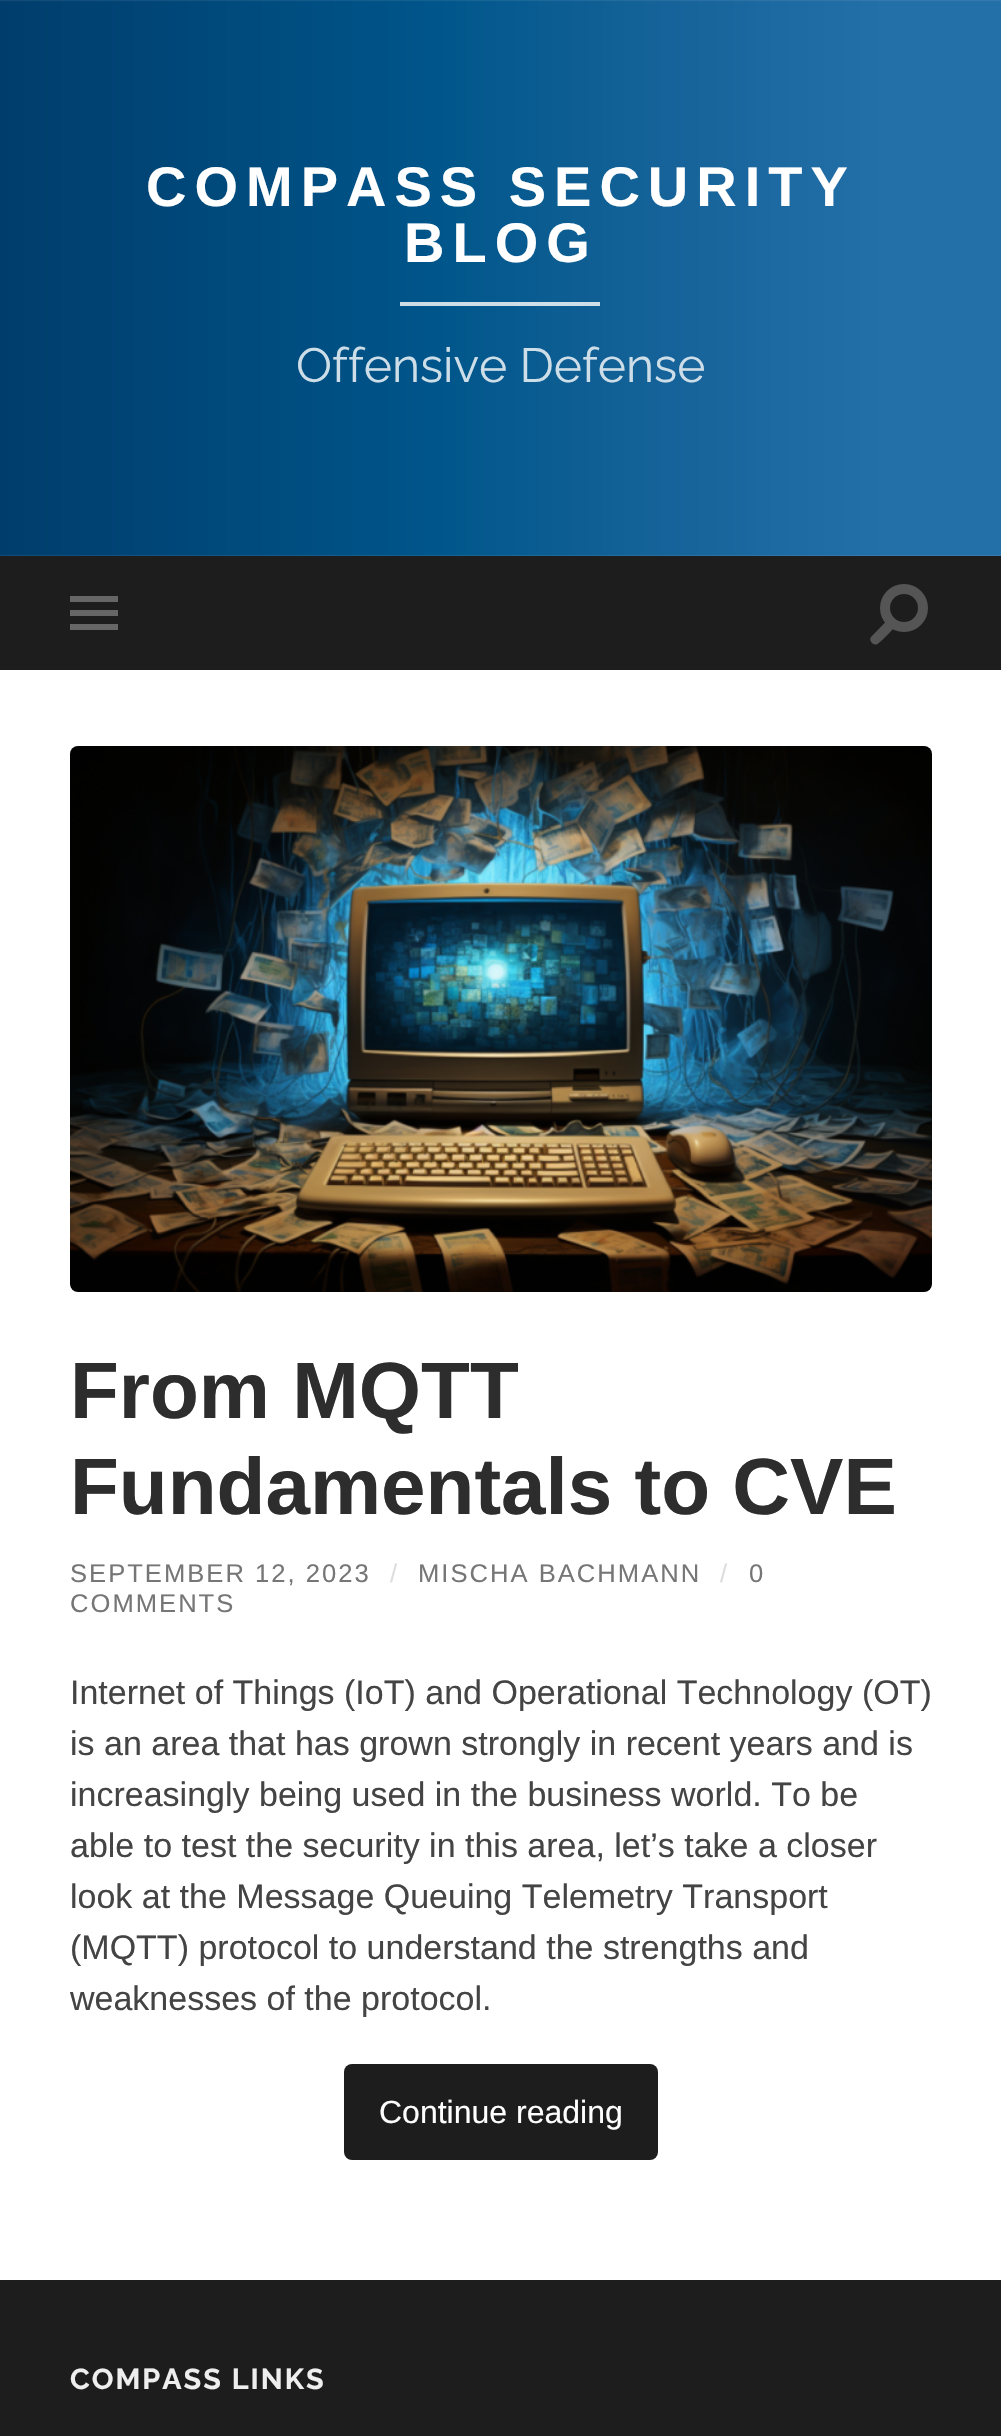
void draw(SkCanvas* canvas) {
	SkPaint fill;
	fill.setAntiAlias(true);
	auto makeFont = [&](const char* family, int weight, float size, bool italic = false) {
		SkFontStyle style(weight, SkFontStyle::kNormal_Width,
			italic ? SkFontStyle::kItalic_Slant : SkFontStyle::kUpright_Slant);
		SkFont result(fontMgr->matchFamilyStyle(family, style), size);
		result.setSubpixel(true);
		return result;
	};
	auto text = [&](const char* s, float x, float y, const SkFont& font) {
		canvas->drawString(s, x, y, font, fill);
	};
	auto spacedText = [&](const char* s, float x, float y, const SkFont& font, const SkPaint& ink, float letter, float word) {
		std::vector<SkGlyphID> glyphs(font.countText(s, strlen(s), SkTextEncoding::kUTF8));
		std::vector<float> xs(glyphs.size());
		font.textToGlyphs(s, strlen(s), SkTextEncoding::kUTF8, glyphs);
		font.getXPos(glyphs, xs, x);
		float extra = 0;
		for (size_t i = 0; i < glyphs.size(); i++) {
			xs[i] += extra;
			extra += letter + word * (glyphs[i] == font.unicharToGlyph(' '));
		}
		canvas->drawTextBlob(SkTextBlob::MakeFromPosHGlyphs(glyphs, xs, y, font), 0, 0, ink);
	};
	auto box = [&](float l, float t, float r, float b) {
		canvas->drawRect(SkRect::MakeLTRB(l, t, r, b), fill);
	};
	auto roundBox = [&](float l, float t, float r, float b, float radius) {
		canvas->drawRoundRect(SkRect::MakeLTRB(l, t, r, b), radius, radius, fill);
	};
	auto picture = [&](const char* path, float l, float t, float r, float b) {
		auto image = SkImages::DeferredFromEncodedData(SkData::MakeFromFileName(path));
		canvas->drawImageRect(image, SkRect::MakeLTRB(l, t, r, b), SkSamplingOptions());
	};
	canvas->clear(0xFFFFFFFF);
	picture("image0.png", 0, 0, 1001, 556);
	fill.setColor(0xCCFFFFFF);
	box(400, 302, 600, 306);
	fill.setColor(0xFF1D1D1D);
	box(0, 556, 1001, 670);
	fill.setColor(0xFF666666);
	box(70, 596, 118, 602);
	box(70, 610, 118, 616);
	box(70, 624, 118, 630);
	fill.setColor(0xFF555555);
	canvas->drawCircle(904, 608, 24, fill);
	fill.setColor(0xFF1D1D1D);
	canvas->drawCircle(904, 608, 14, fill);
	fill.setColor(0xFF555555);
	canvas->drawPath(SkPathBuilder().moveTo(871.5f, 636.5f).lineTo(888, 619.5f).lineTo(895.5f, 626.5f).cubicTo(892.5f, 629.5f, 879, 644, 876.5f, 644.5f).cubicTo(872.5f, 645.5f, 868, 639.5f, 871.5f, 636.5f).close().detach(), fill);
	picture("image1.png", 70, 746, 932, 1292);
	fill.setColor(0xFF1D1D1D);
	roundBox(344, 2064, 658, 2160, 8);
	box(0, 2280, 1001, 2436);
	auto font1 = makeFont("Liberation Sans", 700, 56);
	fill.setColor(0xFFFFFFFF);
	spacedText("COMPASS SECURITY", 146, 206, font1, fill, 8, 0);
	spacedText("BLOG", 404, 262, font1, fill, 8, 0);
	auto font2 = makeFont("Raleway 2", 100, 48);
	fill.setColor(0xFFCEDEE8);
	text("Offensive Defense", 296, 382, font2);
	auto font3 = makeFont("Liberation Sans", 700, 80);
	fill.setColor(0xFF2D2D2D);
	text("From MQTT", 70, 1418, font3);
	text("Fundamentals to CVE", 70, 1514, font3);
	auto font4 = makeFont("Liberation Sans", 400, 25.6f);
	fill.setColor(0xFF767676);
	spacedText("SEPTEMBER 12, 2023", 70, 1582, font4, fill, 2, 0);
	fill.setColor(0xFFDDDDDD);
	spacedText("/", 390, 1582, font4, fill, 2, 0);
	fill.setColor(0xFF767676);
	spacedText("MISCHA BACHMANN", 418, 1582, font4, fill, 2, 0);
	fill.setColor(0xFFDDDDDD);
	spacedText("/", 720, 1582, font4, fill, 2, 0);
	fill.setColor(0xFF767676);
	spacedText("0", 749, 1582, font4, fill, 2, 0);
	spacedText("COMMENTS", 70, 1612, font4, fill, 2, 0);
	auto font5 = makeFont("Liberation Sans", 400, 34);
	fill.setColor(0xFF444444);
	text("Internet of Things (IoT) and Operational Technology (OT)", 70, 1704, font5);
	text("is an area that has grown strongly in recent years and is", 70, 1755, font5);
	text("increasingly being used in the business world. To be", 70, 1806, font5);
	text("able to test the security in this area, let’s take a closer", 70, 1857, font5);
	text("look at the Message Queuing Telemetry Transport", 70, 1908, font5);
	text("(MQTT) protocol to understand the strengths and", 70, 1959, font5);
	text("weaknesses of the protocol.", 70, 2010, font5);
	auto font6 = makeFont("Liberation Sans", 400, 32);
	fill.setColor(0xFFFFFFFF);
	text("Continue reading", 379, 2123, font6);
	auto font7 = makeFont("Raleway", 100, 28.75f);
	fill.setColor(0xFFEEEEEE);
	spacedText("COMPASS LINKS", 70, 2389, font7, fill, 2, 0);
}
